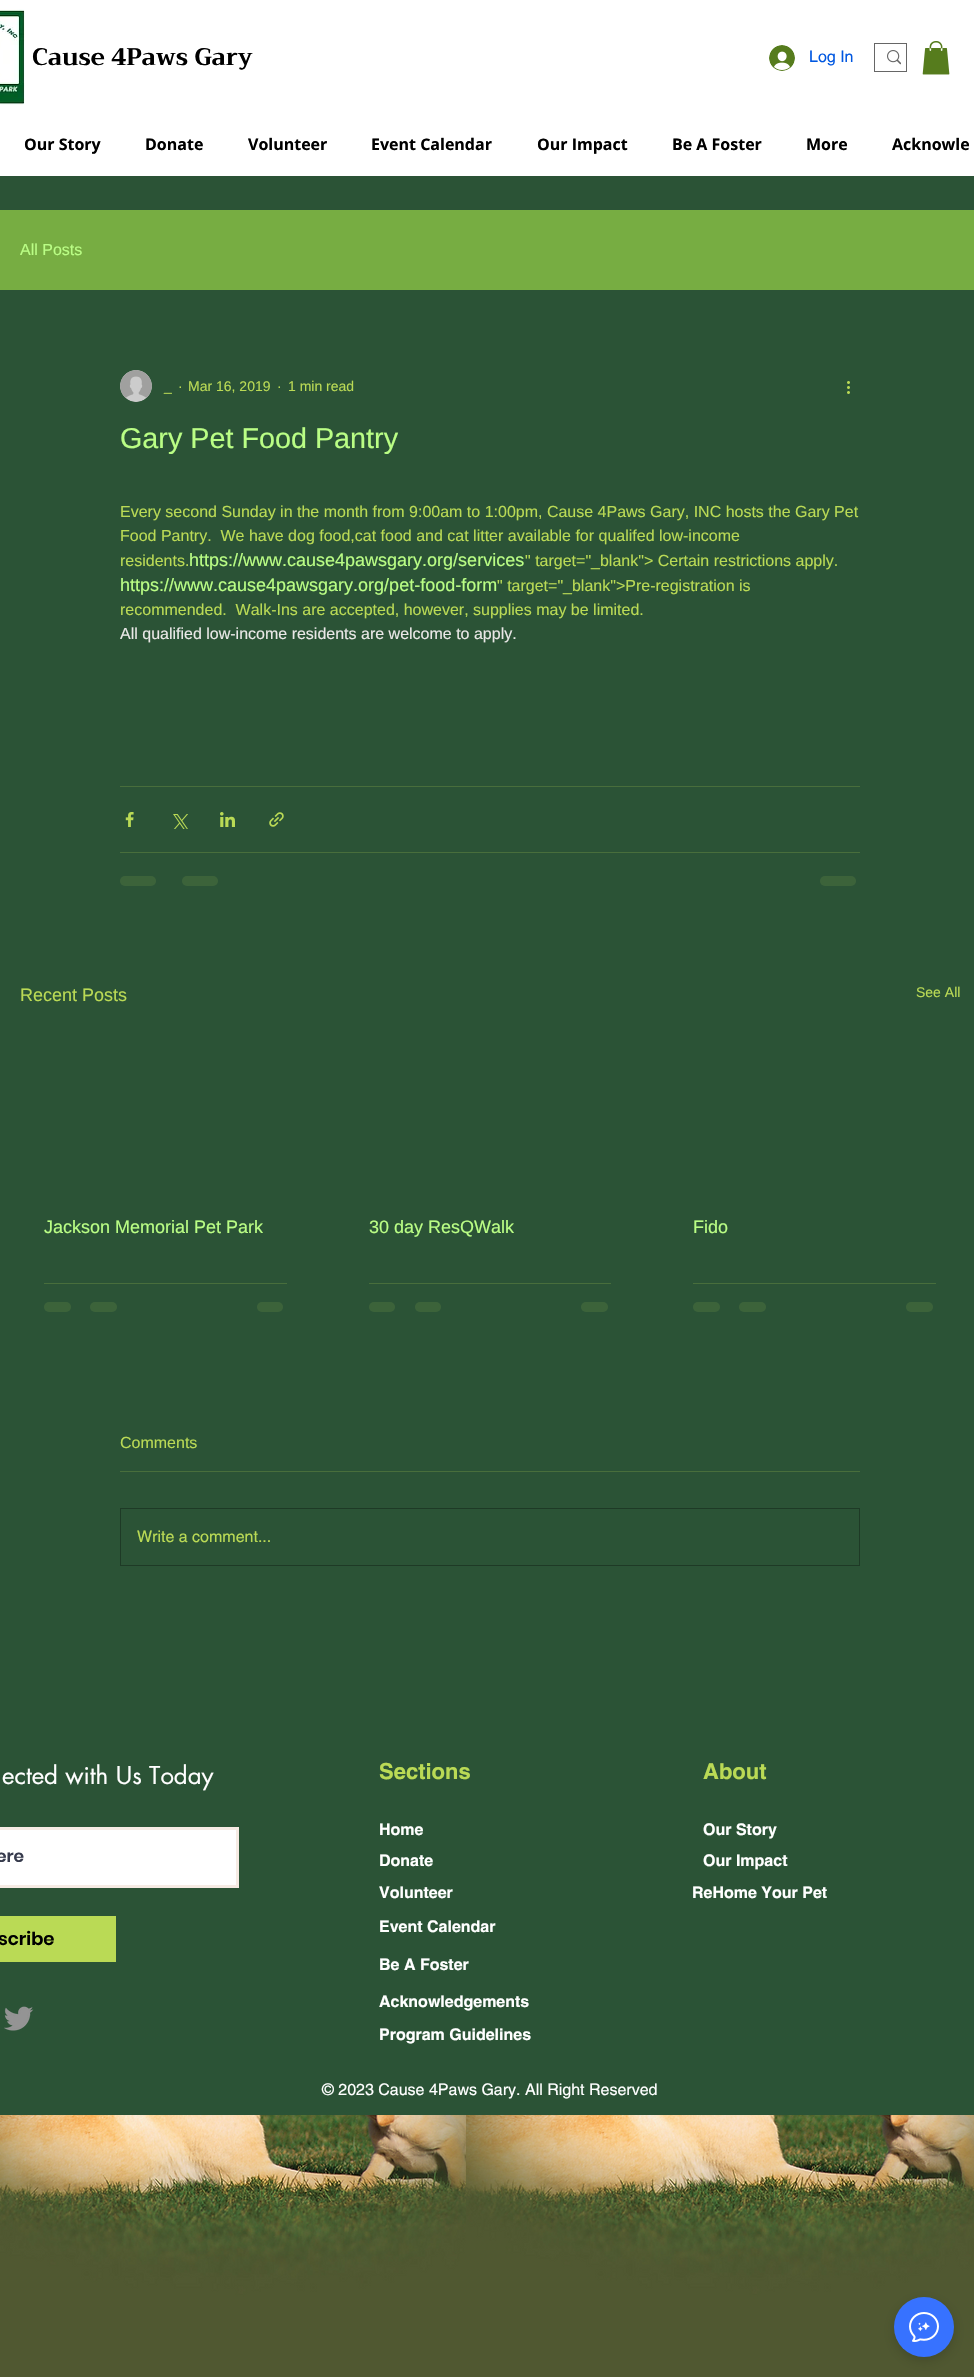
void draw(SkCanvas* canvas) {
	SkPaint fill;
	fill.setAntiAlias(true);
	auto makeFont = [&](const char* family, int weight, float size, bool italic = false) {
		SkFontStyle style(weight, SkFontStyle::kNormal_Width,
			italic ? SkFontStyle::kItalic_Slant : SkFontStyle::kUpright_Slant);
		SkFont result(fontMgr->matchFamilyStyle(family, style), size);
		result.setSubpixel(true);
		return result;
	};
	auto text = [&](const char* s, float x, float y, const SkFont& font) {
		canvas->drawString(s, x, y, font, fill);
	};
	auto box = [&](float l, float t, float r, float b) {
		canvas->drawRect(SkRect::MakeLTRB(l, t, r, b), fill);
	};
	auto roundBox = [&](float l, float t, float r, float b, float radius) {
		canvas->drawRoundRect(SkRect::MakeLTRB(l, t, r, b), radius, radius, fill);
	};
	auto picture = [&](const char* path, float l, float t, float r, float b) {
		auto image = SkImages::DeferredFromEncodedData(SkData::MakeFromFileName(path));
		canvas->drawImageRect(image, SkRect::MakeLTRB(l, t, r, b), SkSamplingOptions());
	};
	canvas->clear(0xFFFFFFFF);
	picture("image0.png", 0, 9, 25, 105);
	picture("image1.png", 769, 45, 795, 71);
	fill.setStyle(SkPaint::kStroke_Style);
	fill.setStrokeWidth(1);
	fill.setColor(0xFF666666);
	canvas->drawRect(SkRect::MakeLTRB(874.5f, 43.5f, 906.5f, 71.5f), fill);
	picture("image2.png", 887, 50, 901, 65);
	picture("image3.png", 922, 41, 950, 75);
	fill.setStyle(SkPaint::kFill_Style);
	fill.setColor(0xFF2B5336);
	box(0, 176, 974, 2115);
	fill.setColor(0xFF77AD42);
	box(0, 210, 974, 290);
	picture("image4.png", 120, 370, 152, 402);
	picture("image5.png", 847, 381, 850, 394);
	fill.setColor(0xFF486E3C);
	box(120, 786, 860, 787);
	picture("image6.png", 125, 812, 134, 827);
	picture("image7.png", 173, 814, 188, 829);
	picture("image8.png", 220, 812, 235, 827);
	picture("image9.png", 269, 812, 284, 827);
	box(120, 852, 860, 853);
	fill.setColor(0xFF3C633A);
	roundBox(120, 876, 156, 886, 5);
	roundBox(182, 876, 218, 886, 5);
	roundBox(820, 876, 856, 886, 5);
	fill.setColor(0xFF486E3C);
	box(44, 1283, 287, 1284);
	fill.setColor(0xFF3C633A);
	roundBox(44, 1302, 71, 1312, 5);
	roundBox(90, 1302, 117, 1312, 5);
	roundBox(257, 1302, 283, 1312, 5);
	fill.setColor(0xFF486E3C);
	box(369, 1283, 611, 1284);
	fill.setColor(0xFF3C633A);
	roundBox(369, 1302, 395, 1312, 5);
	roundBox(415, 1302, 441, 1312, 5);
	roundBox(581, 1302, 608, 1312, 5);
	fill.setColor(0xFF486E3C);
	box(693, 1283, 936, 1284);
	fill.setColor(0xFF3C633A);
	roundBox(693, 1302, 720, 1312, 5);
	roundBox(739, 1302, 766, 1312, 5);
	roundBox(906, 1302, 933, 1312, 5);
	fill.setColor(0xFF486E3C);
	box(120, 1471, 860, 1472);
	fill.setStyle(SkPaint::kStroke_Style);
	fill.setColor(0xFF1E3A26);
	canvas->drawRect(SkRect::MakeLTRB(120.5f, 1508.5f, 859.5f, 1565.5f), fill);
	fill.setStyle(SkPaint::kFill_Style);
	fill.setColor(0xFFFFFFFF);
	canvas->drawRect(SkRect::MakeLTRB(-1.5f, 1828.5f, 237.5f, 1886.5f), fill);
	fill.setStyle(SkPaint::kStroke_Style);
	fill.setStrokeWidth(3);
	fill.setColor(0xFFF6EBE4);
	canvas->drawRect(SkRect::MakeLTRB(-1.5f, 1828.5f, 237.5f, 1886.5f), fill);
	fill.setStyle(SkPaint::kFill_Style);
	fill.setColor(0xFFBADA55);
	box(0, 1916, 116, 1962);
	picture("image10.png", 4, 2006, 34, 2031);
	picture("image11.png", 0, 2115, 974, 2377);
	fill.setColor(0x26000000);
	fill.setMaskFilter(SkMaskFilter::MakeBlur(kNormal_SkBlurStyle, 6));
	canvas->drawRoundRect(SkRect::MakeLTRB(894, 2301, 954, 2361), 30, 30, fill);
	fill.setMaskFilter(nullptr);
	fill.setColor(0xFF3772FF);
	canvas->drawCircle(924, 2327, 30, fill);
	picture("image12.png", 909, 2312, 939, 2342);
	auto font1 = makeFont("Trirong", 700, 24);
	fill.setColor(0xFF000000);
	text("Cause 4Paws Gary", 32, 65, font1);
	auto font2 = makeFont("helvetica", 400, 16);
	fill.setColor(0xFF0057E1);
	text("Log In", 809, 62, font2);
	auto font3 = makeFont("Open Sans", 700, 16);
	fill.setColor(0xFF000000);
	text("Our Story", 24, 150, font3);
	text("Donate", 145, 150, font3);
	text("Volunteer", 248, 150, font3);
	text("Event Calendar", 371, 150, font3);
	text("Our Impact", 537, 150, font3);
	text("Be A Foster", 672, 150, font3);
	text("More", 806, 150, font3);
	text("Acknowle", 892, 150, font3);
	auto font4 = makeFont("Liberation Sans", 400, 16);
	fill.setColor(0xFFBAFE85);
	text("All Posts", 20, 255, font4);
	auto font5 = makeFont("Liberation Sans", 400, 14);
	fill.setColor(0xFFBADA55);
	text("_", 164, 391, font5);
	text("·", 178, 391, font5);
	text("Mar 16, 2019", 188, 391, font5);
	text("·", 277, 391, font5);
	text("1 min read", 288, 391, font5);
	auto font6 = makeFont("Liberation Sans", 400, 28.75f);
	fill.setColor(0xFFBAFE85);
	text("Gary Pet Food Pantry", 120, 448, font6);
	fill.setColor(0xFFBADA55);
	text("Every second Sunday in the month from 9:00am to 1:00pm, Cause 4Paws Gary, INC hosts the Gary Pet", 120, 517, font4);
	text("Food Pantry.  We have dog food,cat food and cat litter available for qualifed low-income", 120, 541, font4);
	text("residents.", 120, 566, font4);
	auto font7 = makeFont("Liberation Sans", 400, 18);
	fill.setColor(0xFFBAFE85);
	text("https://www.cause4pawsgary.org/services", 189, 566, font7);
	fill.setColor(0xFFBADA55);
	text("\" target=\"_blank\"> Certain restrictions apply.", 525, 566, font4);
	fill.setColor(0xFFBAFE85);
	text("https://www.cause4pawsgary.org/pet-food-form", 120, 591, font7);
	fill.setColor(0xFFBADA55);
	text("\" target=\"_blank\">Pre-registration is", 497, 591, font4);
	text("recommended.  Walk-Ins are accepted, however, supplies may be limited.", 120, 615, font4);
	fill.setColor(0xFFEAE8E7);
	text("All qualified low-income residents are welcome to apply.", 120, 639, font4);
	fill.setColor(0xFFBADA55);
	text("Recent Posts", 20, 1001, font7);
	text("See All", 916, 997, font5);
	fill.setColor(0xFFBAFE85);
	text("Jackson Memorial Pet Park", 44, 1233, font7);
	text("30 day ResQWalk", 369, 1233, font7);
	text("Fido", 693, 1233, font7);
	fill.setColor(0xFFBADA55);
	text("Comments", 120, 1448, font4);
	text("Write a comment...", 137, 1542, font2);
	auto font8 = makeFont("futura", 400, 24);
	fill.setColor(0xFFFFFFFF);
	text("ected with Us Today", 2, 1784, font8);
	auto font9 = makeFont("helvetica", 700, 22);
	fill.setColor(0xFFBADA55);
	text("Sections", 379, 1779, font9);
	text("About", 703, 1779, font9);
	auto font10 = makeFont("helvetica", 700, 16);
	fill.setColor(0xFFFFFFFF);
	text("Home", 379, 1835, font10);
	text("Our Story", 703, 1835, font10);
	auto font11 = makeFont("Poppins", 600, 17);
	fill.setColor(0xFF373B4D);
	text("ere", -4, 1862, font11);
	auto font12 = makeFont("Poppins", 600, 18);
	fill.setColor(0xFF000000);
	text("scribe", -2, 1945, font12);
	fill.setColor(0xFFFFFFFF);
	text("Donate", 379, 1866, font10);
	text("Our Impact", 703, 1866, font10);
	text("Volunteer", 379, 1898, font10);
	text("ReHome Your Pet", 692, 1898, font10);
	text("Event Calendar", 379, 1932, font10);
	text("Be A Foster", 379, 1970, font10);
	text("Acknowledgements", 379, 2007, font10);
	text("Program Guidelines", 379, 2040, font10);
	text("© 2023 Cause 4Paws Gary. All Right Reserved", 322, 2095, font2);
}
